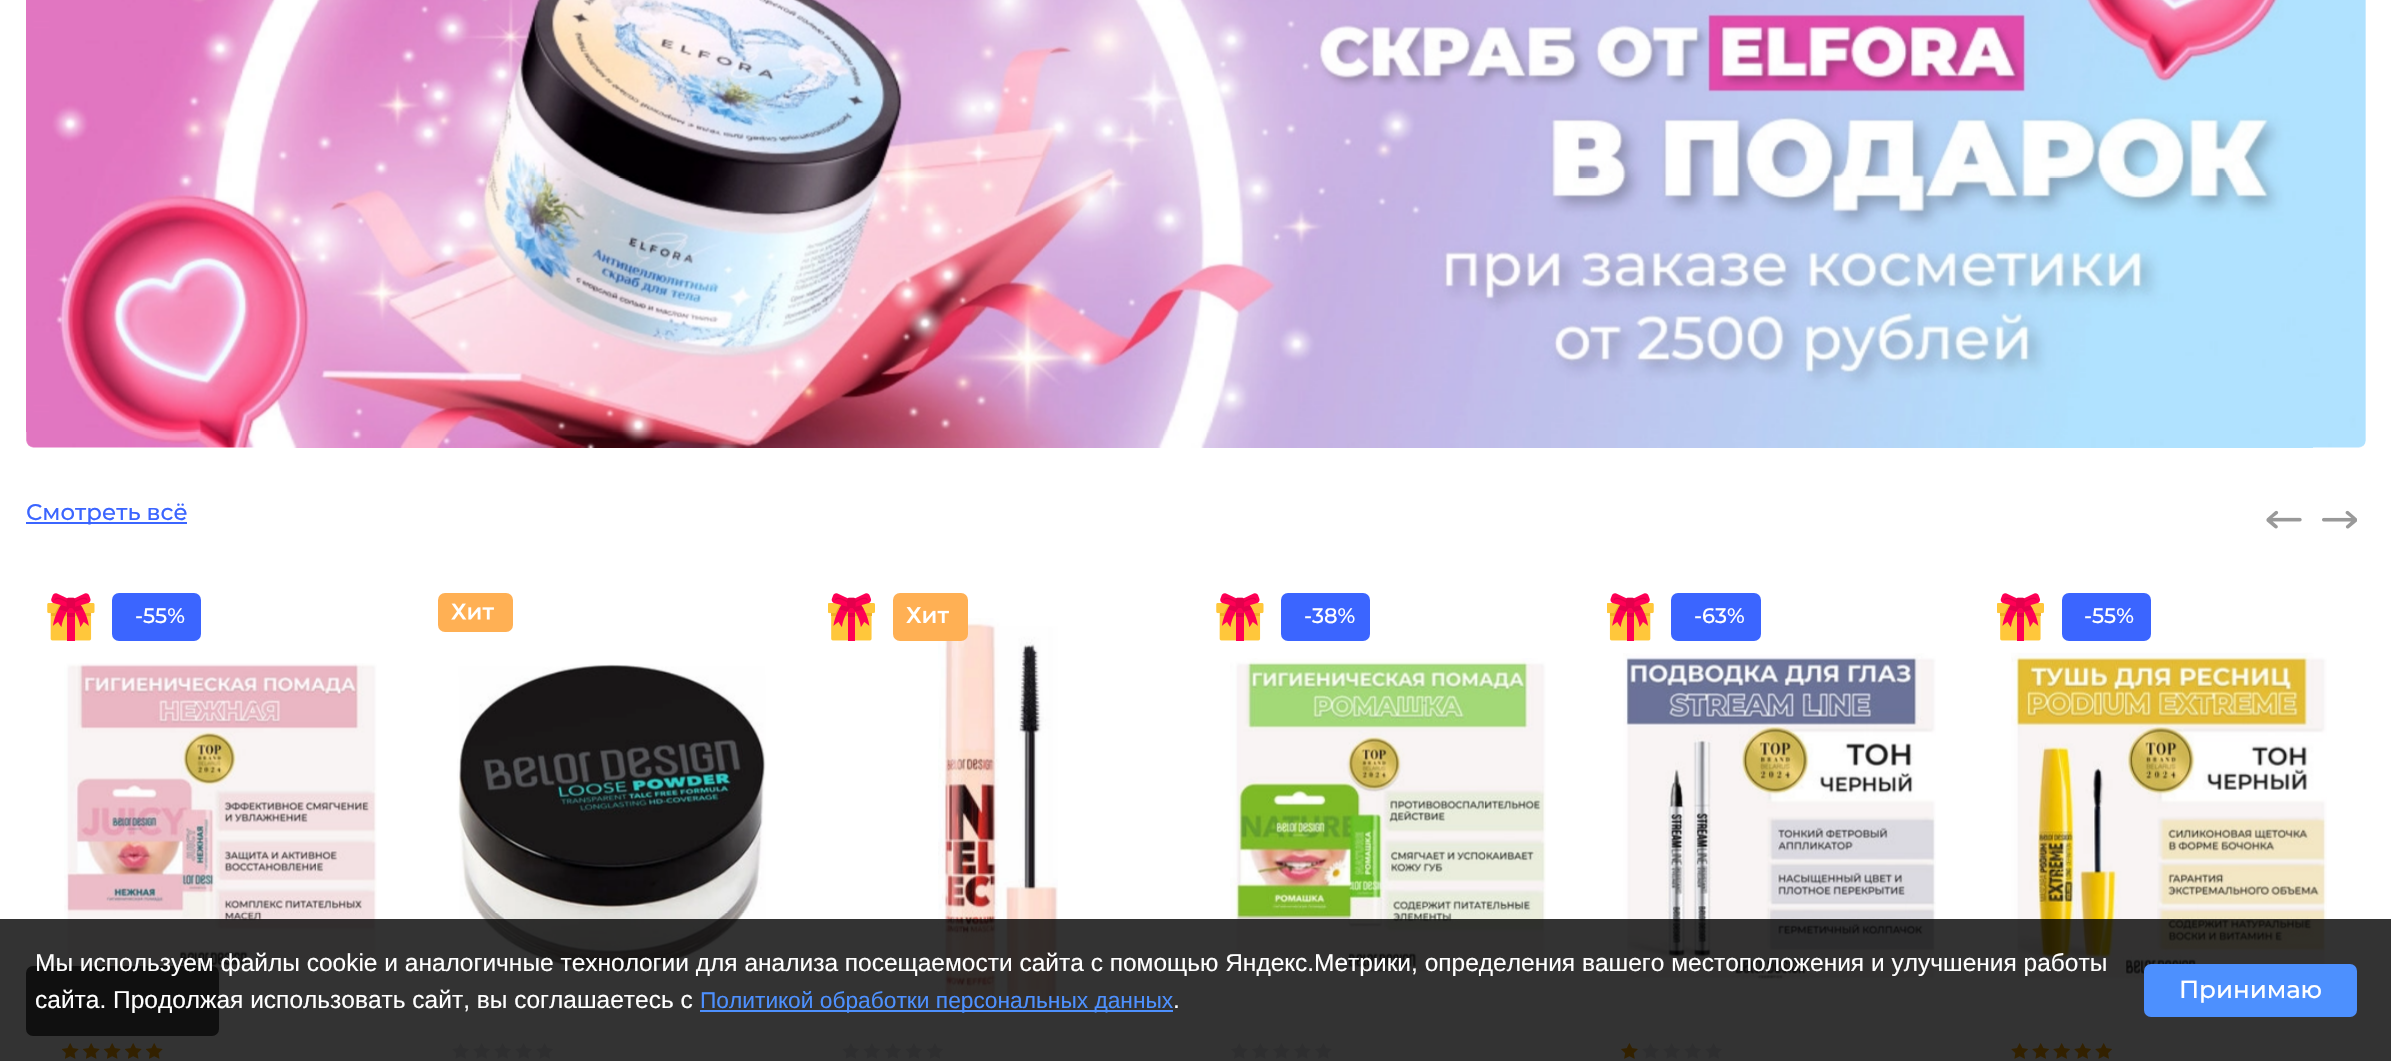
void draw(SkCanvas* canvas) {
	SkPaint fill;
	fill.setAntiAlias(true);
	auto makeFont = [&](const char* family, int weight, float size, bool italic = false) {
		SkFontStyle style(weight, SkFontStyle::kNormal_Width,
			italic ? SkFontStyle::kItalic_Slant : SkFontStyle::kUpright_Slant);
		SkFont result(fontMgr->matchFamilyStyle(family, style), size);
		result.setSubpixel(true);
		return result;
	};
	auto text = [&](const char* s, float x, float y, const SkFont& font) {
		canvas->drawString(s, x, y, font, fill);
	};
	auto box = [&](float l, float t, float r, float b) {
		canvas->drawRect(SkRect::MakeLTRB(l, t, r, b), fill);
	};
	auto roundBox = [&](float l, float t, float r, float b, float radius) {
		canvas->drawRoundRect(SkRect::MakeLTRB(l, t, r, b), radius, radius, fill);
	};
	auto picture = [&](const char* path, float l, float t, float r, float b) {
		auto image = SkImages::DeferredFromEncodedData(SkData::MakeFromFileName(path));
		canvas->drawImageRect(image, SkRect::MakeLTRB(l, t, r, b), SkSamplingOptions());
	};
	canvas->clear(0xFFFFFFFF);
	picture("image0.png", 26, 0, 2366, 448);
	fill.setColor(0xFF3B65FF);
	box(26, 522, 187, 524);
	picture("image1.png", 2266, 510, 2302, 529);
	picture("image2.png", 2322, 510, 2357, 529);
	picture("image3.png", 47, 593, 95, 641);
	roundBox(112, 593, 201, 641, 7);
	picture("image4.png", 64, 663, 377, 975);
	picture("image5.png", 61, 1043, 79, 1059);
	picture("image5.png", 82, 1043, 100, 1059);
	picture("image5.png", 103, 1043, 121, 1059);
	picture("image5.png", 124, 1043, 142, 1059);
	picture("image5.png", 145, 1043, 163, 1059);
	fill.setColor(0xFFFFB054);
	roundBox(438, 593, 513, 632, 7);
	picture("image6.png", 451, 603, 494, 620);
	picture("image7.png", 457, 664, 766, 971);
	picture("image8.png", 452, 1043, 469, 1059);
	picture("image8.png", 473, 1043, 490, 1059);
	picture("image8.png", 494, 1043, 511, 1059);
	picture("image8.png", 515, 1043, 532, 1059);
	picture("image8.png", 536, 1043, 553, 1059);
	picture("image9.png", 828, 593, 875, 641);
	picture("image11.png", 938, 618, 1058, 1015);
	roundBox(893, 593, 968, 641, 7);
	picture("image10.png", 906, 607, 949, 623);
	picture("image12.png", 842, 1043, 859, 1059);
	picture("image12.png", 863, 1043, 880, 1059);
	picture("image12.png", 884, 1043, 901, 1059);
	picture("image12.png", 905, 1043, 922, 1059);
	picture("image12.png", 926, 1043, 943, 1059);
	picture("image3.png", 1216, 593, 1264, 641);
	fill.setColor(0xFF3B65FF);
	roundBox(1281, 593, 1370, 641, 7);
	picture("image13.png", 1230, 658, 1546, 975);
	picture("image14.png", 1231, 1043, 1248, 1059);
	picture("image14.png", 1252, 1043, 1269, 1059);
	picture("image14.png", 1273, 1043, 1290, 1059);
	picture("image14.png", 1294, 1043, 1311, 1059);
	picture("image14.png", 1315, 1043, 1332, 1059);
	picture("image15.png", 1607, 593, 1654, 641);
	roundBox(1671, 593, 1761, 641, 7);
	picture("image16.png", 1623, 653, 1936, 981);
	picture("image17.png", 1621, 1043, 1638, 1059);
	picture("image8.png", 1642, 1043, 1659, 1059);
	picture("image8.png", 1663, 1043, 1680, 1059);
	picture("image8.png", 1684, 1043, 1701, 1059);
	picture("image8.png", 1705, 1043, 1722, 1059);
	picture("image9.png", 1997, 593, 2044, 641);
	roundBox(2062, 593, 2151, 641, 7);
	picture("image18.png", 2011, 652, 2327, 981);
	picture("image19.png", 2011, 1043, 2028, 1059);
	picture("image19.png", 2032, 1043, 2049, 1059);
	picture("image19.png", 2053, 1043, 2070, 1059);
	picture("image19.png", 2074, 1043, 2091, 1059);
	picture("image19.png", 2095, 1043, 2112, 1059);
	fill.setColor(0xB3000000);
	roundBox(26, 966, 219, 1036, 7);
	fill.setColor(0xCC000000);
	box(0, 919, 2391, 1061);
	fill.setColor(0xFF4D90FE);
	box(700, 1010, 1173, 1012);
	roundBox(2144, 964, 2357, 1017, 7);
	auto font1 = makeFont("Montserrat", 500, 22.75f);
	fill.setColor(0xFF3B65FF);
	text("Смотреть всё", 26, 520, font1);
	auto font2 = makeFont("Montserrat", 500, 21);
	fill.setColor(0xFFFFFFFF);
	text("-55%", 135, 623, font2);
	text("-38%", 1304, 623, font2);
	text("-63%", 1694, 623, font2);
	text("-55%", 2084, 623, font2);
	auto font3 = makeFont("Liberation Sans", 400, 24.5f);
	text("Мы используем файлы cookie и аналогичные технологии для анализа посещаемости сайта с помощью Яндекс.Метрики, определения вашего местоположения и улучшения работы", 35, 971, font3);
	text("сайта. Продолжая использовать сайт, вы соглашаетесь с", 35, 1008, font3);
	auto font4 = makeFont("Liberation Sans", 400, 22.75f);
	fill.setColor(0xFF4D90FE);
	text("Политикой обработки персональных данных", 700, 1008, font4);
	fill.setColor(0xFFFFFFFF);
	text(".", 1173, 1008, font3);
	auto font5 = makeFont("Montserrat", 500, 24.5f);
	text("Принимаю", 2179, 998, font5);
}
